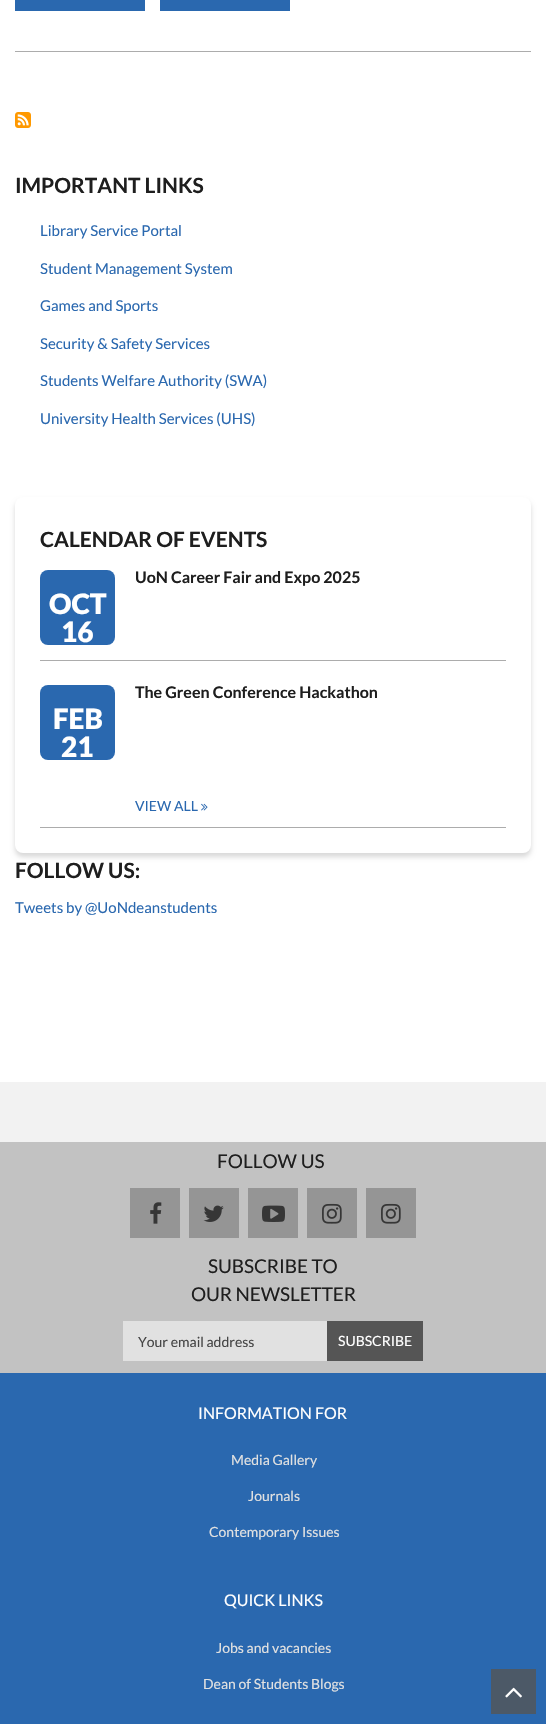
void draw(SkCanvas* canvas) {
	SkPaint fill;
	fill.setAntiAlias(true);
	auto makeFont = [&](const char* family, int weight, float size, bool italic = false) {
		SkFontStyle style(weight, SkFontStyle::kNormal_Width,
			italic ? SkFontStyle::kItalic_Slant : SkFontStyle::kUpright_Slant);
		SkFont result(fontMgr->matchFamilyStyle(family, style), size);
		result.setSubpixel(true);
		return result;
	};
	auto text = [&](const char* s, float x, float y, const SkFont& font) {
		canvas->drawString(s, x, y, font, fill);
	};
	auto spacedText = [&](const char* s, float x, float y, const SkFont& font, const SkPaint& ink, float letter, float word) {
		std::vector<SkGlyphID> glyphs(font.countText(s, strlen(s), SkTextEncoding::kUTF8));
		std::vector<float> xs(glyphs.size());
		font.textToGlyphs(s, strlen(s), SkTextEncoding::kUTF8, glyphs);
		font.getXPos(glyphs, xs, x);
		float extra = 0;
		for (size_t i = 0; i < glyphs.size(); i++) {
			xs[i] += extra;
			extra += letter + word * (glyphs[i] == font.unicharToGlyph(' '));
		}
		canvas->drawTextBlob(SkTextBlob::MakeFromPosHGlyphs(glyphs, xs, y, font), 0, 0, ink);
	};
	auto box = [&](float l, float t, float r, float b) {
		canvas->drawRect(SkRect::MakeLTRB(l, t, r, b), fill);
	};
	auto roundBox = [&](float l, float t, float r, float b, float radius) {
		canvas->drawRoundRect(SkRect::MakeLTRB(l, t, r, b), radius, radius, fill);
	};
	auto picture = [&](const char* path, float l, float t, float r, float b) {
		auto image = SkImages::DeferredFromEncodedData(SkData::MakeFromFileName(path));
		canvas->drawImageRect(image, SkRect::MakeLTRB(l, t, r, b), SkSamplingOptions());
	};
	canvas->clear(0xFFFFFFFF);
	fill.setColor(0xFFACACAC);
	box(15, 51, 531, 52);
	fill.setColor(0xFF2A68AF);
	box(15, 0, 145, 11);
	box(160, 0, 290, 11);
	picture("image0.png", 15, 112, 31, 128);
	fill.setColor(0x26000000);
	fill.setMaskFilter(SkMaskFilter::MakeBlur(kNormal_SkBlurStyle, 2.5f));
	canvas->drawRoundRect(SkRect::MakeLTRB(15, 501, 531, 857), 8, 8, fill);
	fill.setMaskFilter(nullptr);
	fill.setColor(0xFFFFFFFF);
	roundBox(15, 497, 531, 853, 8);
	fill.setColor(0xFFACACAC);
	box(40, 827, 506, 828);
	box(40, 660, 506, 661);
	fill.setColor(0xFF2A68AF);
	roundBox(40, 570, 115, 645, 8);
	roundBox(40, 685, 115, 760, 8);
	picture("image1.png", 201, 803, 208, 811);
	fill.setColor(0xFFF2F2F2);
	box(0, 1082, 546, 1142);
	fill.setColor(0xFFC2C2C2);
	box(0, 1142, 546, 1373);
	fill.setColor(0xFF959595);
	box(130, 1188, 180, 1238);
	picture("image2.png", 150, 1202, 162, 1224);
	box(189, 1188, 239, 1238);
	picture("image3.png", 203, 1205, 224, 1222);
	box(248, 1188, 298, 1238);
	picture("image4.png", 262, 1205, 285, 1222);
	box(307, 1188, 357, 1238);
	picture("image5.png", 322, 1203, 342, 1224);
	box(366, 1188, 416, 1238);
	picture("image5.png", 381, 1203, 401, 1224);
	fill.setColor(0xFFE1E1E1);
	box(123, 1321, 327, 1361);
	fill.setColor(0xFF555555);
	box(327, 1321, 423, 1361);
	fill.setColor(0xFF2A68AF);
	box(0, 1373, 546, 1724);
	fill.setColor(0xFF4C5967);
	box(491, 1669, 536, 1714);
	picture("image6.png", 505, 1687, 522, 1698);
	auto font1 = makeFont("Lato", 700, 21);
	fill.setColor(0xFF1E1E1E);
	text("IMPORTANT LINKS", 15, 193, font1);
	auto font2 = makeFont("Lato", 400, 15);
	fill.setColor(0xFF2A68AF);
	text("Library Service Portal", 40, 236, font2);
	text("Student Management System", 40, 274, font2);
	text("Games and Sports", 40, 311, font2);
	text("Security & Safety Services", 40, 349, font2);
	text("Students Welfare Authority (SWA)", 40, 386, font2);
	text("University Health Services (UHS)", 40, 424, font2);
	fill.setColor(0xFF1E1E1E);
	text("CALENDAR OF EVENTS", 40, 547, font1);
	auto font3 = makeFont("Lato", 700, 16);
	text("UoN Career Fair and Expo 2025", 135, 583, font3);
	auto font4 = makeFont("Lato", 900, 28);
	fill.setColor(0xFFFFFFFF);
	text("OCT", 49, 614, font4);
	text("16", 61, 642, font4);
	fill.setColor(0xFF1E1E1E);
	text("The Green Conference Hackathon", 135, 698, font3);
	fill.setColor(0xFFFFFFFF);
	text("FEB", 53, 729, font4);
	text("21", 61, 757, font4);
	auto font5 = makeFont("Lato", 400, 14);
	fill.setColor(0xFF2A68AF);
	text("VIEW ALL", 135, 811, font5);
	fill.setColor(0xFF1E1E1E);
	text("FOLLOW US:", 15, 878, font1);
	fill.setColor(0xFF2A68AF);
	text("Tweets by @UoNdeanstudents", 15, 913, font2);
	auto font6 = makeFont("Lato", 400, 19);
	fill.setColor(0xFF1E1E1E);
	text("FOLLOW US", 217, 1168, font6);
	spacedText("SUBSCRIBE TO", 208, 1273, font6, fill, -0.1f, 0);
	spacedText("OUR NEWSLETTER", 191, 1301, font6, fill, -0.1f, 0);
	fill.setColor(0xFF464646);
	text("Your email address", 138, 1347, font5);
	fill.setColor(0xFFFFFFFF);
	text("SUBSCRIBE", 338, 1346, font5);
	auto font7 = makeFont("Lato", 400, 16);
	text("INFORMATION FOR", 198, 1419, font7);
	fill.setColor(0xFFE1E1E1);
	text("Media Gallery", 231, 1465, font5);
	text("Journals", 248, 1501, font5);
	text("Contemporary Issues", 209, 1537, font5);
	fill.setColor(0xFFFFFFFF);
	text("QUICK LINKS", 224, 1606, font7);
	fill.setColor(0xFFE1E1E1);
	text("Jobs and vacancies", 216, 1653, font5);
	text("Dean of Students Blogs", 203, 1689, font5);
}
